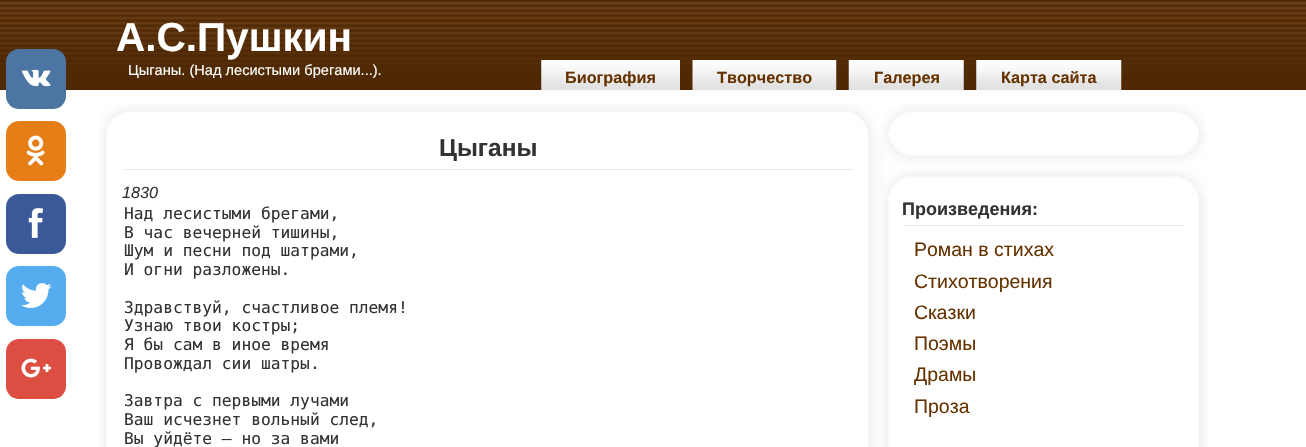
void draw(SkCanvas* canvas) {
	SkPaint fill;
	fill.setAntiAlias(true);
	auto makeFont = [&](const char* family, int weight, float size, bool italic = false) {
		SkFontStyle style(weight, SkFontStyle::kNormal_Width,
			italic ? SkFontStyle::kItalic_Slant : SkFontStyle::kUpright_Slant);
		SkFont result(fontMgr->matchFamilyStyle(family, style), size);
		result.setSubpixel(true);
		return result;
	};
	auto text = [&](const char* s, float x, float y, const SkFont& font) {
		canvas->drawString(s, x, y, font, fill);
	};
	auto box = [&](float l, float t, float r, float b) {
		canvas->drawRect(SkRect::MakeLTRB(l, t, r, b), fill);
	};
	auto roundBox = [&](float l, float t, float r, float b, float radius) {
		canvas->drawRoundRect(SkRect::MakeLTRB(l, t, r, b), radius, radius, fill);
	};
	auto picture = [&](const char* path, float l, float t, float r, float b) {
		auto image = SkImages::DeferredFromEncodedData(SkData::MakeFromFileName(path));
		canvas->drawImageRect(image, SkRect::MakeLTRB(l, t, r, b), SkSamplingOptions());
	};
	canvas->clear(0xFFFFFFFF);
	picture("image0.png", 0, 0, 1306, 90);
	fill.setColor(0xFF4D75A3);
	roundBox(6, 49, 66, 109, 13);
	picture("image1.png", 21, 69, 51, 87);
	fill.setColor(0xFFE67E17);
	roundBox(6, 121, 66, 181, 13);
	picture("image2.png", 26, 135, 45, 166);
	fill.setColor(0xFF3B5998);
	roundBox(6, 194, 66, 254, 13);
	picture("image3.png", 28, 208, 44, 238);
	fill.setColor(0xFF55ACEE);
	roundBox(6, 266, 66, 326, 13);
	picture("image4.png", 21, 283, 52, 308);
	fill.setColor(0xFFDC4E41);
	roundBox(6, 339, 66, 399, 13);
	picture("image5.png", 21, 358, 51, 378);
	picture("image6.png", 541, 60, 680, 91);
	picture("image7.png", 692, 60, 837, 91);
	picture("image8.png", 848, 60, 964, 91);
	picture("image9.png", 976, 60, 1122, 91);
	picture("image10.png", 100, 104, 1205, 134);
	picture("image11.png", 99, 134, 1207, 447);
	fill.setColor(0xFFEAEAEA);
	box(123, 169, 854, 170);
	picture("image12.png", 884, 136, 1207, 196);
	box(903, 225, 1184, 226);
	auto font1 = makeFont("Liberation Sans", 700, 40.5f);
	fill.setColor(0xFFFFFFFF);
	text("А.С.Пушкин", 116, 51, font1);
	auto font2 = makeFont("Liberation Sans", 400, 14.6f);
	text("Цыганы. (Над лесистыми брегами...).", 128, 75, font2);
	auto font3 = makeFont("Liberation Sans", 700, 16.25f);
	fill.setColor(0xFF663300);
	text("Биография", 565, 83, font3);
	text("Творчество", 717, 83, font3);
	text("Галерея", 874, 83, font3);
	text("Карта сайта", 1001, 83, font3);
	auto font4 = makeFont("Liberation Sans", 700, 24.5f);
	fill.setColor(0xFF333333);
	text("Цыганы", 439, 156, font4);
	auto font5 = makeFont("Liberation Sans", 400, 16.25f, true);
	text("1830", 122, 198, font5);
	auto font6 = makeFont("DejaVu Sans Mono", 400, 16.25f);
	text("Над лесистыми брегами,", 124, 219, font6);
	text("В час вечерней тишины,", 124, 238, font6);
	text("Шум и песни под шатрами,", 124, 256, font6);
	text("И огни разложены.", 124, 275, font6);
	text("Здравствуй, счастливое племя!", 124, 313, font6);
	text("Узнаю твои костры;", 124, 331, font6);
	text("Я бы сам в иное время", 124, 350, font6);
	text("Провождал сии шатры.", 124, 369, font6);
	text("Завтра с первыми лучами", 124, 406, font6);
	text("Ваш исчезнет вольный след,", 124, 425, font6);
	text("Вы уйдёте — но за вами", 124, 444, font6);
	auto font7 = makeFont("Liberation Sans", 700, 18);
	text("Произведения:", 902, 215, font7);
	auto font8 = makeFont("Liberation Sans", 400, 19.5f);
	fill.setColor(0xFF663300);
	text("Роман в стихах", 914, 256, font8);
	text("Стихотворения", 914, 288, font8);
	text("Сказки", 914, 319, font8);
	text("Поэмы", 914, 350, font8);
	text("Драмы", 914, 381, font8);
	text("Проза", 914, 413, font8);
}
